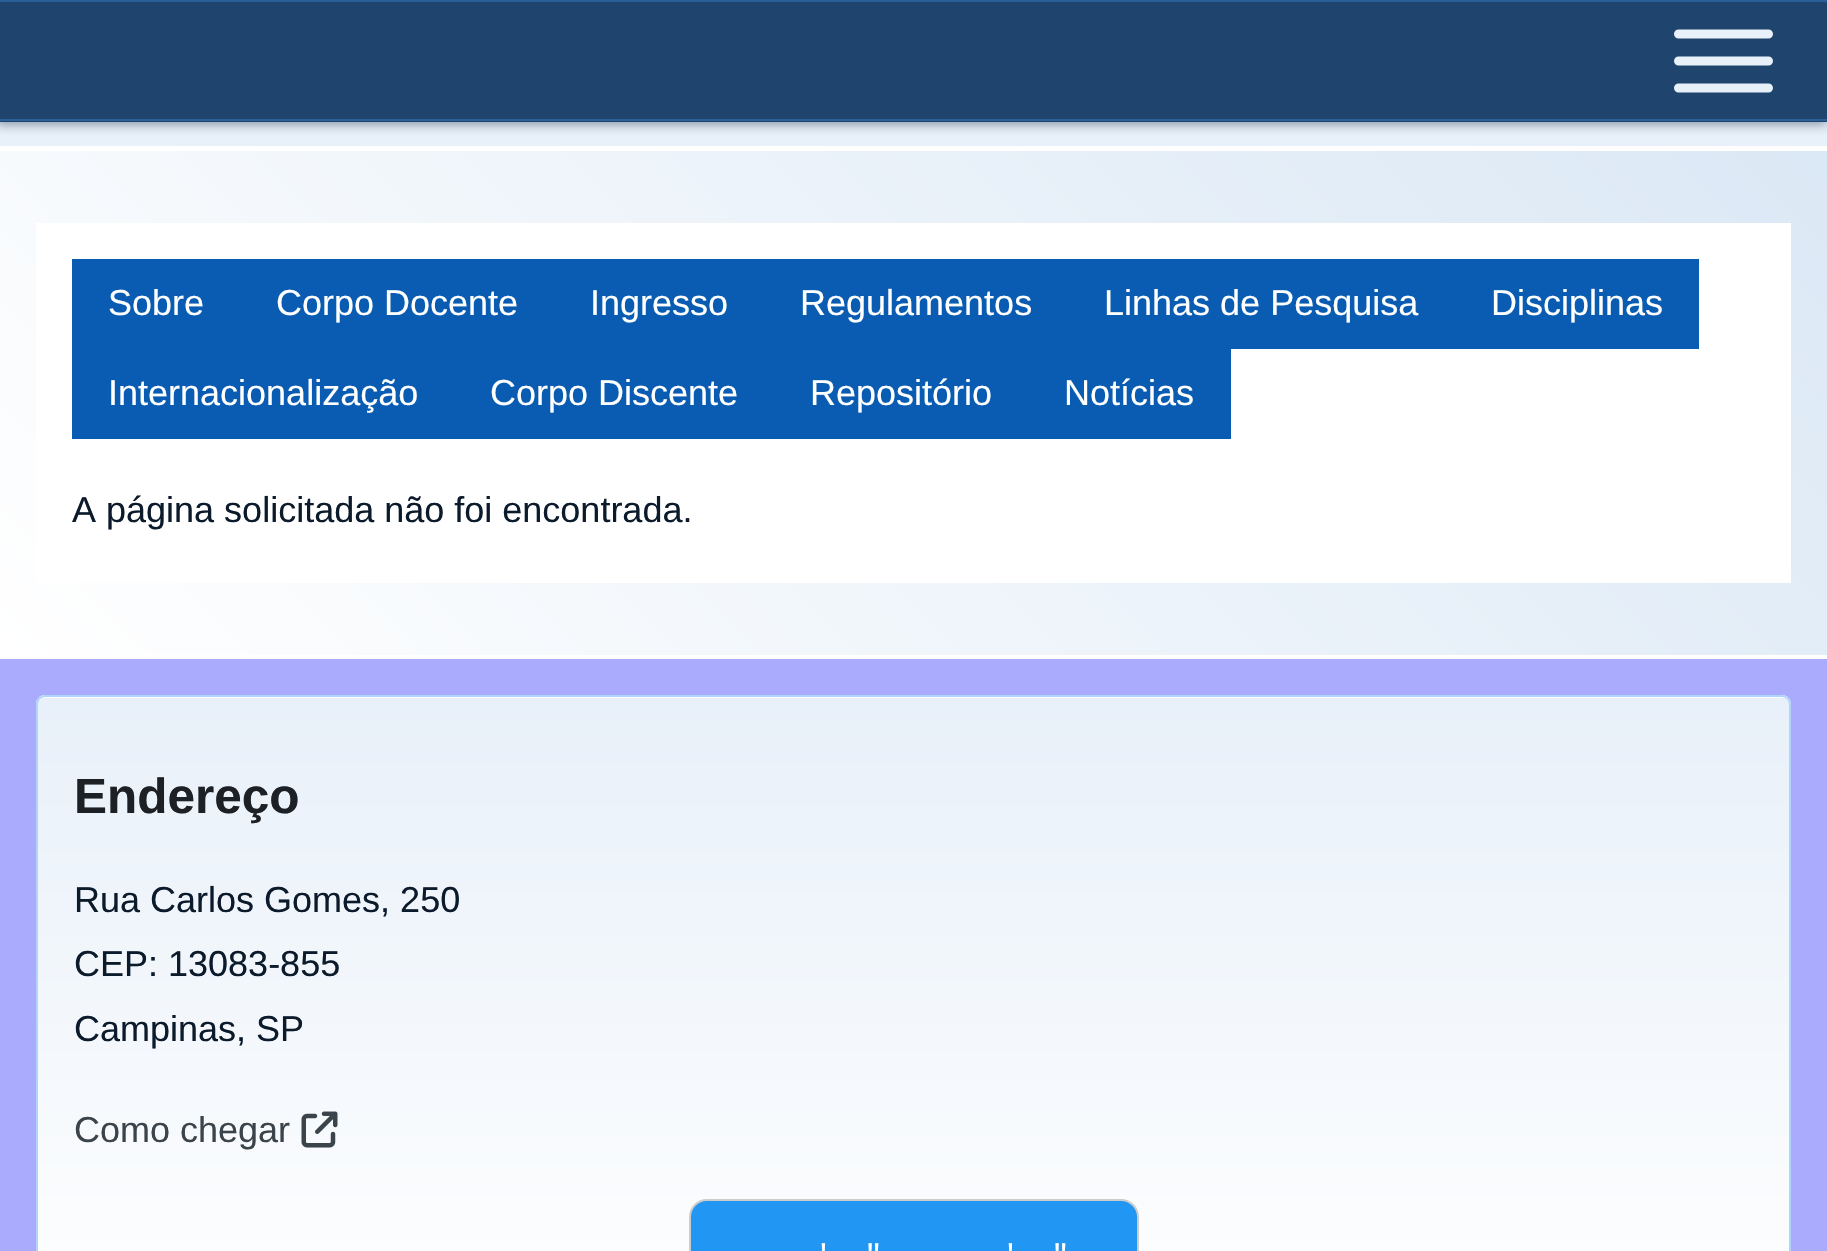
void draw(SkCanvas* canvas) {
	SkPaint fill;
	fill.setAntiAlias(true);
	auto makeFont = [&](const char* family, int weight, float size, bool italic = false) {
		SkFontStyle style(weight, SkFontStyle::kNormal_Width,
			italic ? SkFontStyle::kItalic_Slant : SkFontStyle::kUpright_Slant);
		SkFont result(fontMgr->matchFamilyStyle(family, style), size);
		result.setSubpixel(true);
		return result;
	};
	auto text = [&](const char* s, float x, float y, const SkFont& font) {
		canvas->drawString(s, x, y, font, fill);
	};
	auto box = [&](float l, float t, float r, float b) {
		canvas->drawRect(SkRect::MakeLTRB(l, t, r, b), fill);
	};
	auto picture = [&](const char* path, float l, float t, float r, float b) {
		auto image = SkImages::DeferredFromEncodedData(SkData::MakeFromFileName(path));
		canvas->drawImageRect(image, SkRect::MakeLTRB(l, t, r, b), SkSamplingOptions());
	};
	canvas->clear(0xFFE8F0F9);
	fill.setColor(0x80142C46);
	fill.setMaskFilter(SkMaskFilter::MakeBlur(kNormal_SkBlurStyle, 5.5f));
	canvas->drawRect(SkRect::MakeLTRB(-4, -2, 1827, 124), fill);
	fill.setMaskFilter(nullptr);
	fill.setColor(0xFF1F456E);
	box(0, 2, 1827, 122);
	fill.setColor(0xFF2B5F97);
	box(0, 0, 1827, 2);
	box(0, 119, 1827, 121);
	fill.setStyle(SkPaint::kStroke_Style);
	fill.setStrokeWidth(9);
	fill.setStrokeCap(SkPaint::kRound_Cap);
	fill.setStrokeJoin(SkPaint::kRound_Join);
	fill.setColor(0xFFE8F0F9);
	canvas->drawPath(SkPathBuilder().moveTo(1678.5f, 88).lineTo(1768.5f, 88).close().detach(), fill);
	canvas->drawPath(SkPathBuilder().moveTo(1678.5f, 61).lineTo(1768.5f, 61).close().detach(), fill);
	canvas->drawPath(SkPathBuilder().moveTo(1678.5f, 34).lineTo(1768.5f, 34).close().detach(), fill);
	fill.setStyle(SkPaint::kFill_Style);
	fill.setColor(0xFFFFFFFF);
	box(0, 146, 1827, 151);
	{
		const SkColor colors[] = {0xFFFFFFFF, 0xFFDBE8F5};
		const float stops[] = {0, 1};
		const SkPoint ends[] = {{331, 986}, {1496, -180}};
		fill.setShader(SkGradientShader::MakeLinear(ends, colors, stops, 2, SkTileMode::kClamp));
		fill.setAlpha(255);
	}
	box(0, 151, 1827, 655);
	fill.setShader(nullptr);
	fill.setColor(0xFFFFFFFF);
	box(0, 655, 1827, 659);
	box(36, 223, 1791, 583);
	fill.setColor(0xFF095CB1);
	box(72, 259, 1699, 349);
	box(72, 349, 1231, 439);
	fill.setColor(0xFFABABFD);
	box(0, 659, 1827, 1251);
	canvas->save();
	canvas->clipPath(SkPathBuilder().moveTo(45, 695).lineTo(1782, 695).cubicTo(1787, 695, 1791, 699, 1791, 704).lineTo(1791, 1341).cubicTo(1791, 1346, 1787, 1350, 1782, 1350).lineTo(45, 1350).cubicTo(40, 1350, 36, 1346, 36, 1341).lineTo(36, 704).cubicTo(36, 699, 40, 695, 45, 695).close().detach(), true);
	{
		const SkColor colors[] = {0xFFFFFFFF, 0xFFE8F0F9};
		const float stops[] = {0, 1};
		const SkPoint ends[] = {{914, 698}, {914, 47}};
		fill.setShader(SkGradientShader::MakeLinear(ends, colors, stops, 2, SkTileMode::kClamp));
		fill.setAlpha(255);
	}
	box(36, 695, 1791, 698);
	{
		const SkColor colors[] = {0xFFFFFFFF, 0xFFE8F0F9};
		const float stops[] = {0, 1};
		const SkPoint ends[] = {{914, 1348}, {914, 698}};
		fill.setShader(SkGradientShader::MakeLinear(ends, colors, stops, 2, SkTileMode::kClamp));
		fill.setAlpha(255);
	}
	box(36, 698, 1791, 1251);
	canvas->restore();
	fill.setStyle(SkPaint::kStroke_Style);
	fill.setStrokeWidth(2);
	fill.setStrokeCap(SkPaint::kButt_Cap);
	fill.setStrokeJoin(SkPaint::kMiter_Join);
	fill.setShader(nullptr);
	fill.setColor(0xFFB0D5FD);
	canvas->drawRoundRect(SkRect::MakeLTRB(37, 696, 1790, 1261), 8, 8, fill);
	picture("image0.png", 301, 1111, 338, 1148);
	fill.setStyle(SkPaint::kFill_Style);
	fill.setColor(0xFF2196F3);
	canvas->drawRoundRect(SkRect::MakeLTRB(690, 1200, 1138, 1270), 17, 17, fill);
	fill.setStyle(SkPaint::kStroke_Style);
	fill.setColor(0xFFCCCCCC);
	canvas->drawRoundRect(SkRect::MakeLTRB(690, 1200, 1138, 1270), 17, 17, fill);
	auto font1 = makeFont("Liberation Sans", 400, 36);
	fill.setStyle(SkPaint::kFill_Style);
	fill.setColor(0xFFFFFFFF);
	text("Sobre", 108, 315, font1);
	text("Corpo Docente", 276, 315, font1);
	text("Ingresso", 590, 315, font1);
	text("Regulamentos", 800, 315, font1);
	text("Linhas de Pesquisa", 1104, 315, font1);
	text("Disciplinas", 1491, 315, font1);
	text("Internacionalização", 108, 405, font1);
	text("Corpo Discente", 490, 405, font1);
	text("Repositório", 810, 405, font1);
	text("Notícias", 1064, 405, font1);
	fill.setColor(0xFF0C1B2C);
	text("A página solicitada não foi encontrada.", 72, 522, font1);
	auto font2 = makeFont("Liberation Sans", 700, 49.5f);
	fill.setColor(0xFF1D2125);
	text("Endereço", 74, 813, font2);
	fill.setColor(0xFF0C1B2C);
	text("Rua Carlos Gomes, 250", 74, 912, font1);
	text("CEP: 13083-855", 74, 976, font1);
	text("Campinas, SP", 74, 1041, font1);
	fill.setColor(0xFF3B444B);
	text("Como chegar", 74, 1142, font1);
	fill.setColor(0xFFFFFFFF);
	text("'", 820, 1268, font1);
	text("\"", 867, 1268, font1);
	text("'", 1007, 1268, font1);
	text("\"", 1054, 1268, font1);
}
